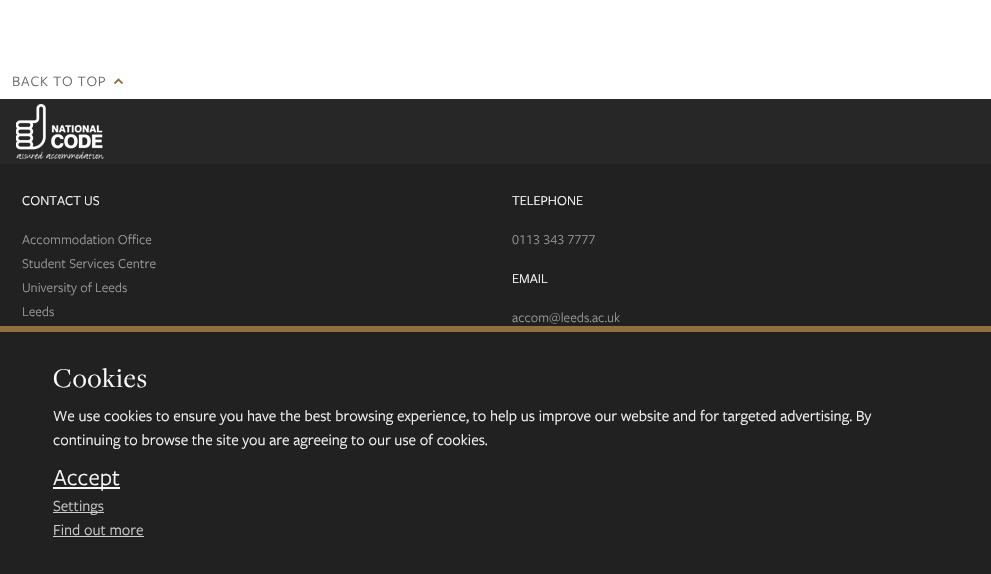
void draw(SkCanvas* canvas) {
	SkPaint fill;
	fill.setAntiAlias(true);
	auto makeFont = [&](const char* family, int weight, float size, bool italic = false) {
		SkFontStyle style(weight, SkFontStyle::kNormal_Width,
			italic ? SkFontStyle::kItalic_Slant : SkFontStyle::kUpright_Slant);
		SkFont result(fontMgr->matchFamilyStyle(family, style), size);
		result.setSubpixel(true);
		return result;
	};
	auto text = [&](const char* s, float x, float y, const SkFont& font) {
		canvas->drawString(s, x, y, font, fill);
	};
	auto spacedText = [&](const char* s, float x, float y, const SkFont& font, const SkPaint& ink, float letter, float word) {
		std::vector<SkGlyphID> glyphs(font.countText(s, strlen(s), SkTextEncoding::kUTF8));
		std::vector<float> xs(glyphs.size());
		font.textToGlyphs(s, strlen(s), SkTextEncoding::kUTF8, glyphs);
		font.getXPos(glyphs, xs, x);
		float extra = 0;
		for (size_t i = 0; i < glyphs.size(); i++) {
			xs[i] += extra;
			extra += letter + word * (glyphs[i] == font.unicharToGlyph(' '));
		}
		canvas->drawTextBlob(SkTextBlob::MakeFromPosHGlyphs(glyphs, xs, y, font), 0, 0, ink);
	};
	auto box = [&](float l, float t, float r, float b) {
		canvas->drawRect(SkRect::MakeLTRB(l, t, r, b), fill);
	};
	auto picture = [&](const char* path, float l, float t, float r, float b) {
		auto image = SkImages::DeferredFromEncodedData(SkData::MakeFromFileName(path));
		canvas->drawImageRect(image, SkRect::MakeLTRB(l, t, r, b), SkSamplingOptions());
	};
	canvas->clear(0xFFFFFFFF);
	picture("image0.png", 113, 78, 124, 85);
	fill.setColor(0xFF272727);
	box(0, 99, 991, 164);
	picture("image1.png", 16, 104, 104, 159);
	fill.setColor(0xFF212121);
	box(0, 164, 991, 326);
	box(0, 332, 991, 574);
	fill.setColor(0xFF916F40);
	box(0, 326, 991, 332);
	fill.setColor(0xFFF7F7F7);
	box(53, 487, 120, 489);
	fill.setColor(0xFFCCCCCC);
	box(53, 512, 104, 513);
	box(53, 536, 144, 537);
	auto font1 = makeFont("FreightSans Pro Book", 400, 15);
	fill.setColor(0xFF666666);
	spacedText("BACK TO TOP", 12, 86, font1, fill, 0.75f, 0);
	auto font2 = makeFont("FreightSans Pro Book", 400, 14);
	fill.setColor(0xFFFFFFFF);
	text("CONTACT US", 22, 205, font2);
	fill.setColor(0xFF999999);
	text("Accommodation Office", 22, 244, font2);
	text("Student Services Centre", 22, 268, font2);
	text("University of Leeds", 22, 292, font2);
	text("Leeds", 22, 316, font2);
	fill.setColor(0xFFFFFFFF);
	text("TELEPHONE", 512, 205, font2);
	auto font3 = makeFont("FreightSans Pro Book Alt", 400, 14);
	fill.setColor(0xFF999999);
	text("0113 343 7777", 512, 244, font3);
	fill.setColor(0xFFFFFFFF);
	text("EMAIL", 512, 283, font2);
	fill.setColor(0xFF999999);
	text("accom@leeds.ac.uk", 512, 322, font2);
	auto font4 = makeFont("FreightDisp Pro", 400, 28);
	fill.setColor(0xFFFFFFFF);
	spacedText("Cookies", 53, 387, font4, fill, 1, 0);
	auto font5 = makeFont("FreightSans Pro Book", 400, 16);
	fill.setColor(0xFFF7F7F7);
	text("We use cookies to ensure you have the best browsing experience, to help us improve our website and for targeted advertising. By", 53, 421, font5);
	text("continuing to browse the site you are agreeing to our use of cookies.", 53, 445, font5);
	auto font6 = makeFont("FreightSans Pro Book", 400, 24);
	text("Accept", 53, 485, font6);
	fill.setColor(0xFFCCCCCC);
	text("Settings", 53, 511, font5);
	text("Find out more", 53, 535, font5);
}
